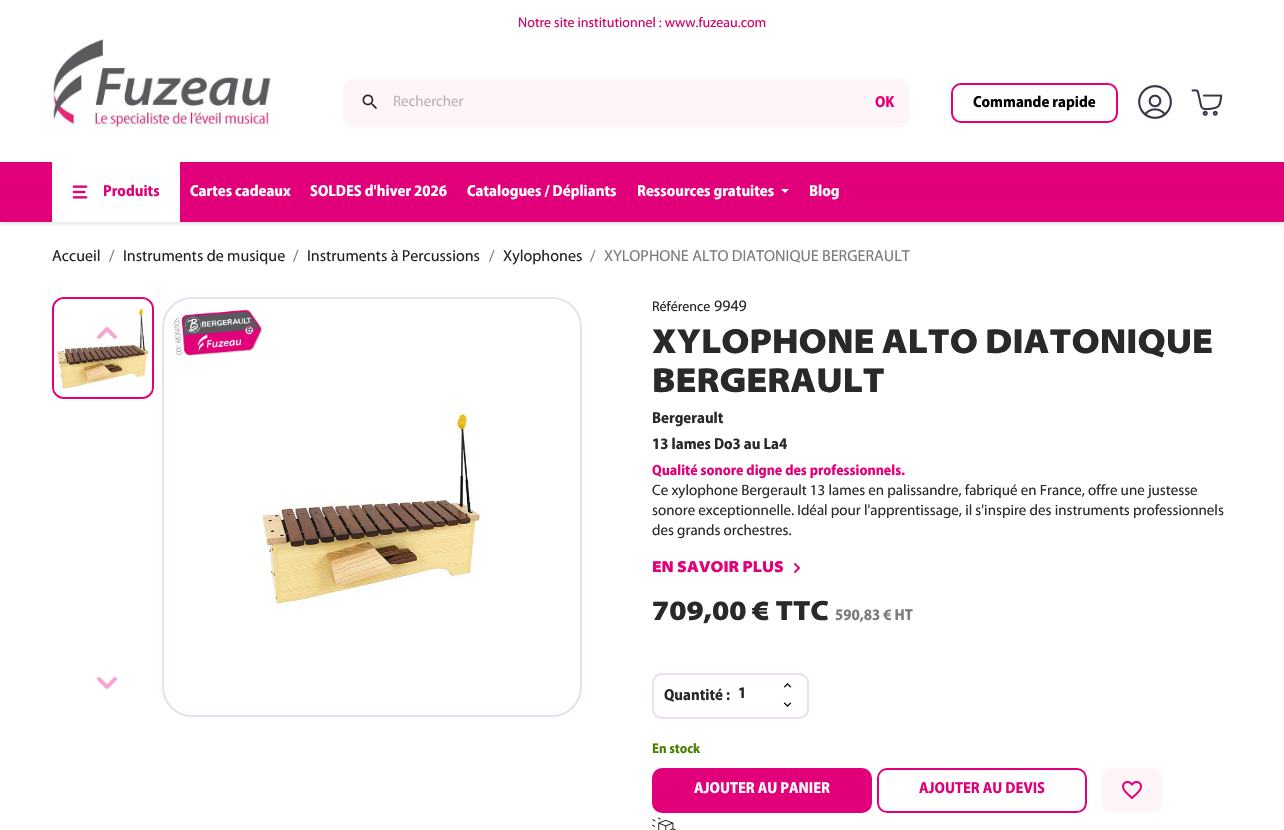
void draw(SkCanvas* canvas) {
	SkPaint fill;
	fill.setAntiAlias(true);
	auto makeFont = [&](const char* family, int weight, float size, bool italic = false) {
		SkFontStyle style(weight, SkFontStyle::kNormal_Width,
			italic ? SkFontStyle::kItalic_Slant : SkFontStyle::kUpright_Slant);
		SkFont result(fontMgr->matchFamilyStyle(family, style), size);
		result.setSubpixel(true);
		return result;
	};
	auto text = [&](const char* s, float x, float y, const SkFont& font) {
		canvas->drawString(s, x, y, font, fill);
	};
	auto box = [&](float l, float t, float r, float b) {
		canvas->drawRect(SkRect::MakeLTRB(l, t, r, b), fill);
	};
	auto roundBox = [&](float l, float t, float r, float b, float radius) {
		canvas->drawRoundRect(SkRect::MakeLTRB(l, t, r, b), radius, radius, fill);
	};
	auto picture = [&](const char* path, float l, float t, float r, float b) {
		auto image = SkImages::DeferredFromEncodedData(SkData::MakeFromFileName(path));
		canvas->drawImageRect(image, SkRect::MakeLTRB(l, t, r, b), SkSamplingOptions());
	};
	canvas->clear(0xFFFFFFFF);
	canvas->save();
	canvas->clipRect(SkRect::MakeLTRB(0, 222, 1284, 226));
	fill.setColor(0x1C000000);
	fill.setMaskFilter(SkMaskFilter::MakeBlur(kNormal_SkBlurStyle, 2.5f));
	canvas->drawRect(SkRect::MakeLTRB(0, 50, 1284, 224), fill);
	fill.setMaskFilter(nullptr);
	canvas->restore();
	picture("image0.png", 52, 38, 272, 128);
	fill.setColor(0xFFFEF5F9);
	roundBox(343, 79, 910, 127, 11);
	picture("image1.png", 362, 94, 377, 109);
	fill.setStyle(SkPaint::kStroke_Style);
	fill.setStrokeWidth(2);
	fill.setColor(0xFFE2007A);
	canvas->drawRoundRect(SkRect::MakeLTRB(952, 84, 1117, 122), 9, 9, fill);
	picture("image2.png", 1138, 85, 1172, 119);
	picture("image3.png", 1191, 89, 1223, 116);
	fill.setStyle(SkPaint::kFill_Style);
	box(0, 162, 1284, 222);
	fill.setColor(0xFFFFFFFF);
	box(52, 162, 180, 222);
	picture("image4.png", 72, 185, 88, 199);
	canvas->drawPath(SkPathBuilder().moveTo(781, 189).lineTo(789, 189).lineTo(785, 193).close().detach(), fill);
	fill.setStyle(SkPaint::kStroke_Style);
	fill.setColor(0xFFE2007A);
	canvas->drawRoundRect(SkRect::MakeLTRB(53, 298, 153, 398), 11, 11, fill);
	picture("image5.png", 54, 299, 152, 397);
	picture("image6.png", 97, 327, 117, 339);
	picture("image7.png", 97, 677, 117, 689);
	fill.setColor(0xFFEADFED);
	canvas->drawRoundRect(SkRect::MakeLTRB(163, 298, 581, 716), 29, 29, fill);
	fill.setStyle(SkPaint::kFill_Style);
	fill.setColor(0xFFFFFFFF);
	roundBox(164, 299, 580, 715, 30);
	picture("image8.png", 260, 409, 480, 607);
	picture("image9.png", 174, 309, 262, 356);
	picture("image10.png", 794, 563, 800, 573);
	fill.setStyle(SkPaint::kStroke_Style);
	fill.setColor(0xFFEADFED);
	canvas->drawRoundRect(SkRect::MakeLTRB(653, 674, 808, 718), 9, 9, fill);
	picture("image11.png", 783, 683, 792, 688);
	picture("image12.png", 783, 702, 792, 707);
	fill.setStyle(SkPaint::kFill_Style);
	fill.setColor(0xFFE2007A);
	canvas->drawRoundRect(SkRect::MakeLTRB(653, 769, 871, 812), 9, 9, fill);
	fill.setStyle(SkPaint::kStroke_Style);
	canvas->drawRoundRect(SkRect::MakeLTRB(653, 769, 871, 812), 9, 9, fill);
	canvas->drawRoundRect(SkRect::MakeLTRB(878, 769, 1086, 812), 9, 9, fill);
	fill.setStyle(SkPaint::kFill_Style);
	fill.setColor(0xFFFEF5F9);
	roundBox(1102, 768, 1162, 813, 10);
	picture("image13.png", 1122, 781, 1142, 800);
	picture("image14.png", 652, 817, 676, 830);
	auto font1 = makeFont("Myriad", 400, 14);
	fill.setColor(0xFFD40067);
	text("Notre site institutionnel : www.fuzeau.com", 518, 27, font1);
	auto font2 = makeFont("Myriad", 400, 15);
	fill.setColor(0xFFB7B3B4);
	text("Rechercher", 393, 106, font2);
	auto font3 = makeFont("Myriad", 700, 16);
	fill.setColor(0xFFE2007A);
	text("OK", 875, 107, font3);
	fill.setColor(0xFF000000);
	text("Commande rapide", 973, 107, font3);
	fill.setColor(0xFFE2007A);
	text("Produits", 103, 196, font3);
	fill.setColor(0xFFFFFFFF);
	text("Cartes cadeaux", 190, 196, font3);
	text("SOLDES d'hiver 2026", 310, 196, font3);
	text("Catalogues / Dépliants", 467, 196, font3);
	text("Ressources gratuites", 637, 196, font3);
	text("Blog", 809, 196, font3);
	auto font4 = makeFont("Myriad", 400, 16);
	fill.setColor(0xFF232323);
	text("Accueil", 52, 261, font4);
	fill.setColor(0xFF7A7A7A);
	text("/", 109, 261, font4);
	fill.setColor(0xFF232323);
	text("Instruments de musique", 123, 261, font4);
	fill.setColor(0xFF7A7A7A);
	text("/", 293, 261, font4);
	fill.setColor(0xFF232323);
	text("Instruments à Percussions", 307, 261, font4);
	fill.setColor(0xFF7A7A7A);
	text("/", 489, 261, font4);
	fill.setColor(0xFF232323);
	text("Xylophones", 503, 261, font4);
	fill.setColor(0xFF7A7A7A);
	text("/", 590, 261, font4);
	text("XYLOPHONE ALTO DIATONIQUE BERGERAULT", 604, 261, font4);
	fill.setColor(0xFF232323);
	text("Référence", 652, 311, font1);
	fill.setColor(0xFF292929);
	text("9949", 714, 311, font4);
	auto font5 = makeFont("Myriad", 900, 35);
	text("XYLOPHONE ALTO DIATONIQUE", 652, 353, font5);
	text("BERGERAULT", 652, 392, font5);
	text("Bergerault", 652, 423, font3);
	text("13 lames Do3 au La4", 652, 449, font3);
	auto font6 = makeFont("Myriad", 700, 15);
	fill.setColor(0xFFE2007A);
	text("Qualité sonore digne des professionnels.", 652, 475, font6);
	fill.setColor(0xFF292929);
	text("Ce xylophone Bergerault 13 lames en palissandre, fabriqué en France, offre une justesse", 652, 495, font2);
	text("sonore exceptionnelle. Idéal pour l'apprentissage, il s'inspire des instruments professionnels", 652, 515, font2);
	text("des grands orchestres.", 652, 535, font2);
	auto font7 = makeFont("Myriad", 900, 16);
	fill.setColor(0xFFE2007A);
	text("EN SAVOIR PLUS", 652, 572, font7);
	auto font8 = makeFont("Myriad", 900, 28);
	fill.setColor(0xFF292929);
	text("709,00 € TTC", 652, 620, font8);
	fill.setColor(0xFF7A7A7A);
	text("590,83 € HT", 835, 620, font3);
	fill.setColor(0xFF292929);
	text("Quantité :", 664, 700, font3);
	fill.setColor(0xFF232323);
	text("1", 738, 698, font3);
	auto font9 = makeFont("Myriad", 700, 14);
	fill.setColor(0xFF498100);
	text("En stock", 652, 753, font9);
	fill.setColor(0xFFFFFFFF);
	text("AJOUTER AU PANIER", 694, 793, font3);
	fill.setColor(0xFFE2007A);
	text("AJOUTER AU DEVIS", 919, 793, font3);
}
